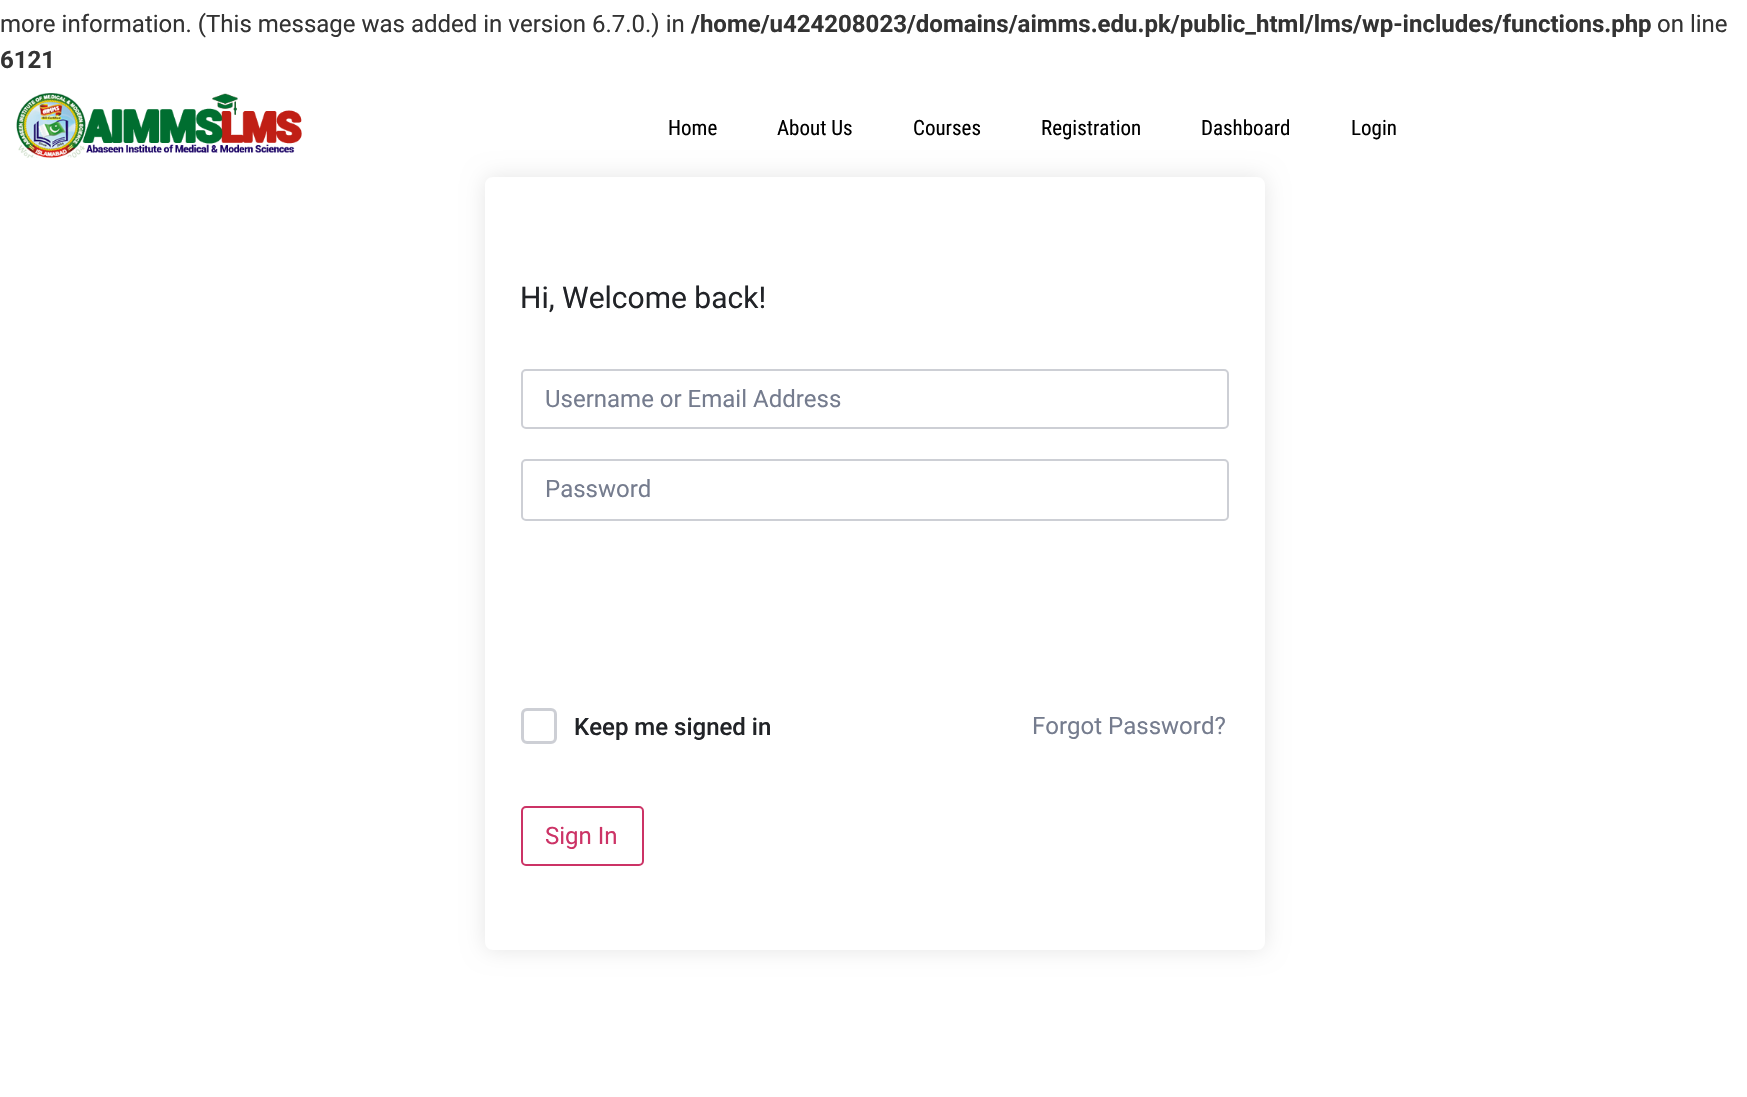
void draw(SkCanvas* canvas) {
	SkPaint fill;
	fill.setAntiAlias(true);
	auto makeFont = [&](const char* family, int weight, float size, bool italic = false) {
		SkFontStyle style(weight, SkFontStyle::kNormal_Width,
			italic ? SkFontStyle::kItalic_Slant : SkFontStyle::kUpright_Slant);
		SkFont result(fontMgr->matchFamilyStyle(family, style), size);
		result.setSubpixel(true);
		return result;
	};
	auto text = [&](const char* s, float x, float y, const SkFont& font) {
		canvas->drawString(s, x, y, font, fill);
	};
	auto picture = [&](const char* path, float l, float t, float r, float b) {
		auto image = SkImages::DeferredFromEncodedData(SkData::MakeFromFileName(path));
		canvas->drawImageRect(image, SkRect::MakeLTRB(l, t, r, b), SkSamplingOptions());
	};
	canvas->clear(0xFFFFFFFF);
	picture("image0.png", 16, 93, 302, 158);
	canvas->save();
	canvas->clipPath(SkPathBuilder(SkPathFillType::kEvenOdd).moveTo(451, 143).lineTo(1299, 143).lineTo(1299, 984).lineTo(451, 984).close().moveTo(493, 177).lineTo(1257, 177).cubicTo(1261.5f, 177, 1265, 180.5f, 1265, 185).lineTo(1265, 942).cubicTo(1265, 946.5f, 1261.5f, 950, 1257, 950).lineTo(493, 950).cubicTo(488.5f, 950, 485, 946.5f, 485, 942).lineTo(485, 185).cubicTo(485, 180.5f, 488.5f, 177, 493, 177).close().detach(), true);
	fill.setColor(0x1A000000);
	fill.setMaskFilter(SkMaskFilter::MakeBlur(kNormal_SkBlurStyle, 11));
	canvas->drawRoundRect(SkRect::MakeLTRB(485, 177, 1265, 950), 8, 8, fill);
	fill.setMaskFilter(nullptr);
	canvas->restore();
	fill.setStyle(SkPaint::kStroke_Style);
	fill.setStrokeWidth(2);
	fill.setColor(0xFFCDCFD5);
	canvas->drawRoundRect(SkRect::MakeLTRB(522, 370, 1228, 428), 4, 4, fill);
	canvas->drawRoundRect(SkRect::MakeLTRB(522, 460, 1228, 520), 4, 4, fill);
	fill.setStrokeWidth(3);
	canvas->drawRoundRect(SkRect::MakeLTRB(522.5f, 709.5f, 555.5f, 742.5f), 4.5f, 4.5f, fill);
	fill.setStrokeWidth(2);
	fill.setColor(0xFFCC3366);
	canvas->drawRoundRect(SkRect::MakeLTRB(522, 807, 643, 865), 4, 4, fill);
	auto font1 = makeFont("Roboto", 400, 24);
	fill.setStyle(SkPaint::kFill_Style);
	fill.setColor(0xFF333333);
	text("more information. (This message was added in version 6.7.0.) in", 0, 32, font1);
	auto font2 = makeFont("Roboto", 700, 24);
	text("/home/u424208023/domains/aimms.edu.pk/public_html/lms/wp-includes/functions.php", 691, 32, font2);
	text("on line", 1657, 32, font1);
	text("6121", 0, 68, font2);
	auto font3 = makeFont("Roboto Condensed", 400, 21);
	fill.setColor(0xFF000000);
	text("Home", 668, 135, font3);
	text("About Us", 777, 135, font3);
	text("Courses", 913, 135, font3);
	text("Registration", 1041, 135, font3);
	text("Dashboard", 1201, 135, font3);
	text("Login", 1351, 135, font3);
	auto font4 = makeFont("Roboto", 400, 30);
	fill.setColor(0xFF212327);
	text("Hi, Welcome back!", 520, 308, font4);
	fill.setColor(0xFF757C8E);
	text("Username or Email Address", 545, 407, font1);
	text("Password", 545, 497, font1);
	auto font5 = makeFont("Roboto", 500, 24);
	fill.setColor(0xFF212327);
	text("Keep me signed in", 574, 735, font5);
	fill.setColor(0xFF757C8E);
	text("Forgot Password?", 1032, 734, font1);
	fill.setColor(0xFFCC3366);
	text("Sign In", 545, 844, font1);
}
